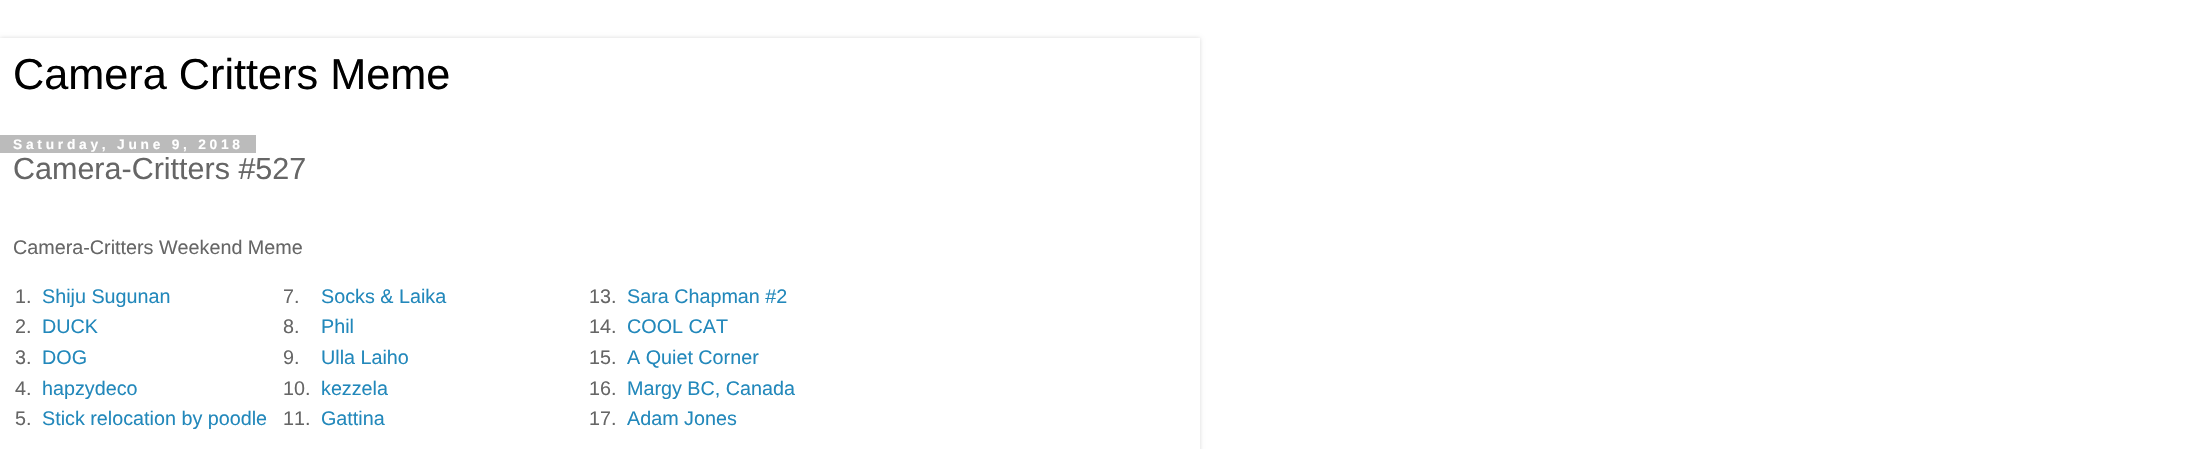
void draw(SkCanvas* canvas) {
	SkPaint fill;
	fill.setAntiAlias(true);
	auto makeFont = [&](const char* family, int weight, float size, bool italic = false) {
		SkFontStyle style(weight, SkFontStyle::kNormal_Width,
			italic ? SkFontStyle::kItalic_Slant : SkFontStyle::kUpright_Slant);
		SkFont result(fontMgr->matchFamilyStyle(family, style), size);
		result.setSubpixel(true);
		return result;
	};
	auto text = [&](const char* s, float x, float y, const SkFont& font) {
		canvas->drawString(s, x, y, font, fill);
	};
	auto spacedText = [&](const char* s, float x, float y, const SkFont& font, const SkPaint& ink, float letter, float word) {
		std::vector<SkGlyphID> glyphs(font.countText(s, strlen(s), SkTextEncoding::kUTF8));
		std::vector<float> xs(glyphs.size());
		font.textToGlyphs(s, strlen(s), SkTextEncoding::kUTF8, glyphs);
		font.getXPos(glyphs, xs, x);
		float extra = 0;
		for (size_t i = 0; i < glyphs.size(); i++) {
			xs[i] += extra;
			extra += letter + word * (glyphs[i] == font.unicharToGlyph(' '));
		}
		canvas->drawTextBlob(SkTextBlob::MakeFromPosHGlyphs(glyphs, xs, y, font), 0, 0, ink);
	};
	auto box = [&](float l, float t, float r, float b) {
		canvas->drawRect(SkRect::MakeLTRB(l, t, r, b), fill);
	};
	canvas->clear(0xFFFFFFFF);
	canvas->save();
	canvas->clipPath(SkPathBuilder(SkPathFillType::kEvenOdd).moveTo(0, 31).lineTo(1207, 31).lineTo(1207, 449).lineTo(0, 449).close().moveTo(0, 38).lineTo(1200, 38).lineTo(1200, 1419).lineTo(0, 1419).close().detach(), true);
	fill.setColor(0x26000000);
	fill.setMaskFilter(SkMaskFilter::MakeBlur(kNormal_SkBlurStyle, 2));
	canvas->drawRect(SkRect::MakeLTRB(0, 38, 1200, 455), fill);
	fill.setMaskFilter(nullptr);
	canvas->restore();
	fill.setColor(0xFFBBBBBB);
	box(0, 135, 256, 153);
	auto font1 = makeFont("Liberation Sans", 400, 43.25f);
	fill.setColor(0xFF000000);
	text("Camera Critters Meme", 13, 89, font1);
	auto font2 = makeFont("Liberation Sans", 700, 13.75f);
	fill.setColor(0xFFFFFFFF);
	spacedText("Saturday, June 9, 2018", 13, 149, font2, fill, 3.75f, 0);
	auto font3 = makeFont("Liberation Sans", 400, 30.5f);
	fill.setColor(0xFF666666);
	text("Camera-Critters #527", 13, 179, font3);
	auto font4 = makeFont("Liberation Sans", 400, 19.75f);
	text("Camera-Critters Weekend Meme", 13, 254, font4);
	text("1.", 15, 303, font4);
	fill.setColor(0xFF2288BB);
	text("Shiju Sugunan", 42, 303, font4);
	fill.setColor(0xFF666666);
	text("7.", 283, 303, font4);
	fill.setColor(0xFF2288BB);
	text("Socks & Laika", 321, 303, font4);
	fill.setColor(0xFF666666);
	text("13.", 589, 303, font4);
	fill.setColor(0xFF2288BB);
	text("Sara Chapman #2", 627, 303, font4);
	fill.setColor(0xFF666666);
	text("2.", 15, 333, font4);
	fill.setColor(0xFF2288BB);
	text("DUCK", 42, 333, font4);
	fill.setColor(0xFF666666);
	text("8.", 283, 333, font4);
	fill.setColor(0xFF2288BB);
	text("Phil", 321, 333, font4);
	fill.setColor(0xFF666666);
	text("14.", 589, 333, font4);
	fill.setColor(0xFF2288BB);
	text("COOL CAT", 627, 333, font4);
	fill.setColor(0xFF666666);
	text("3.", 15, 364, font4);
	fill.setColor(0xFF2288BB);
	text("DOG", 42, 364, font4);
	fill.setColor(0xFF666666);
	text("9.", 283, 364, font4);
	fill.setColor(0xFF2288BB);
	text("Ulla Laiho", 321, 364, font4);
	fill.setColor(0xFF666666);
	text("15.", 589, 364, font4);
	fill.setColor(0xFF2288BB);
	text("A Quiet Corner", 627, 364, font4);
	fill.setColor(0xFF666666);
	text("4.", 15, 395, font4);
	fill.setColor(0xFF2288BB);
	text("hapzydeco", 42, 395, font4);
	fill.setColor(0xFF666666);
	text("10.", 283, 395, font4);
	fill.setColor(0xFF2288BB);
	text("kezzela", 321, 395, font4);
	fill.setColor(0xFF666666);
	text("16.", 589, 395, font4);
	fill.setColor(0xFF2288BB);
	text("Margy BC, Canada", 627, 395, font4);
	fill.setColor(0xFF666666);
	text("5.", 15, 425, font4);
	fill.setColor(0xFF2288BB);
	text("Stick relocation by poodle", 42, 425, font4);
	fill.setColor(0xFF666666);
	text("11.", 283, 425, font4);
	fill.setColor(0xFF2288BB);
	text("Gattina", 321, 425, font4);
	fill.setColor(0xFF666666);
	text("17.", 589, 425, font4);
	fill.setColor(0xFF2288BB);
	text("Adam Jones", 627, 425, font4);
}
